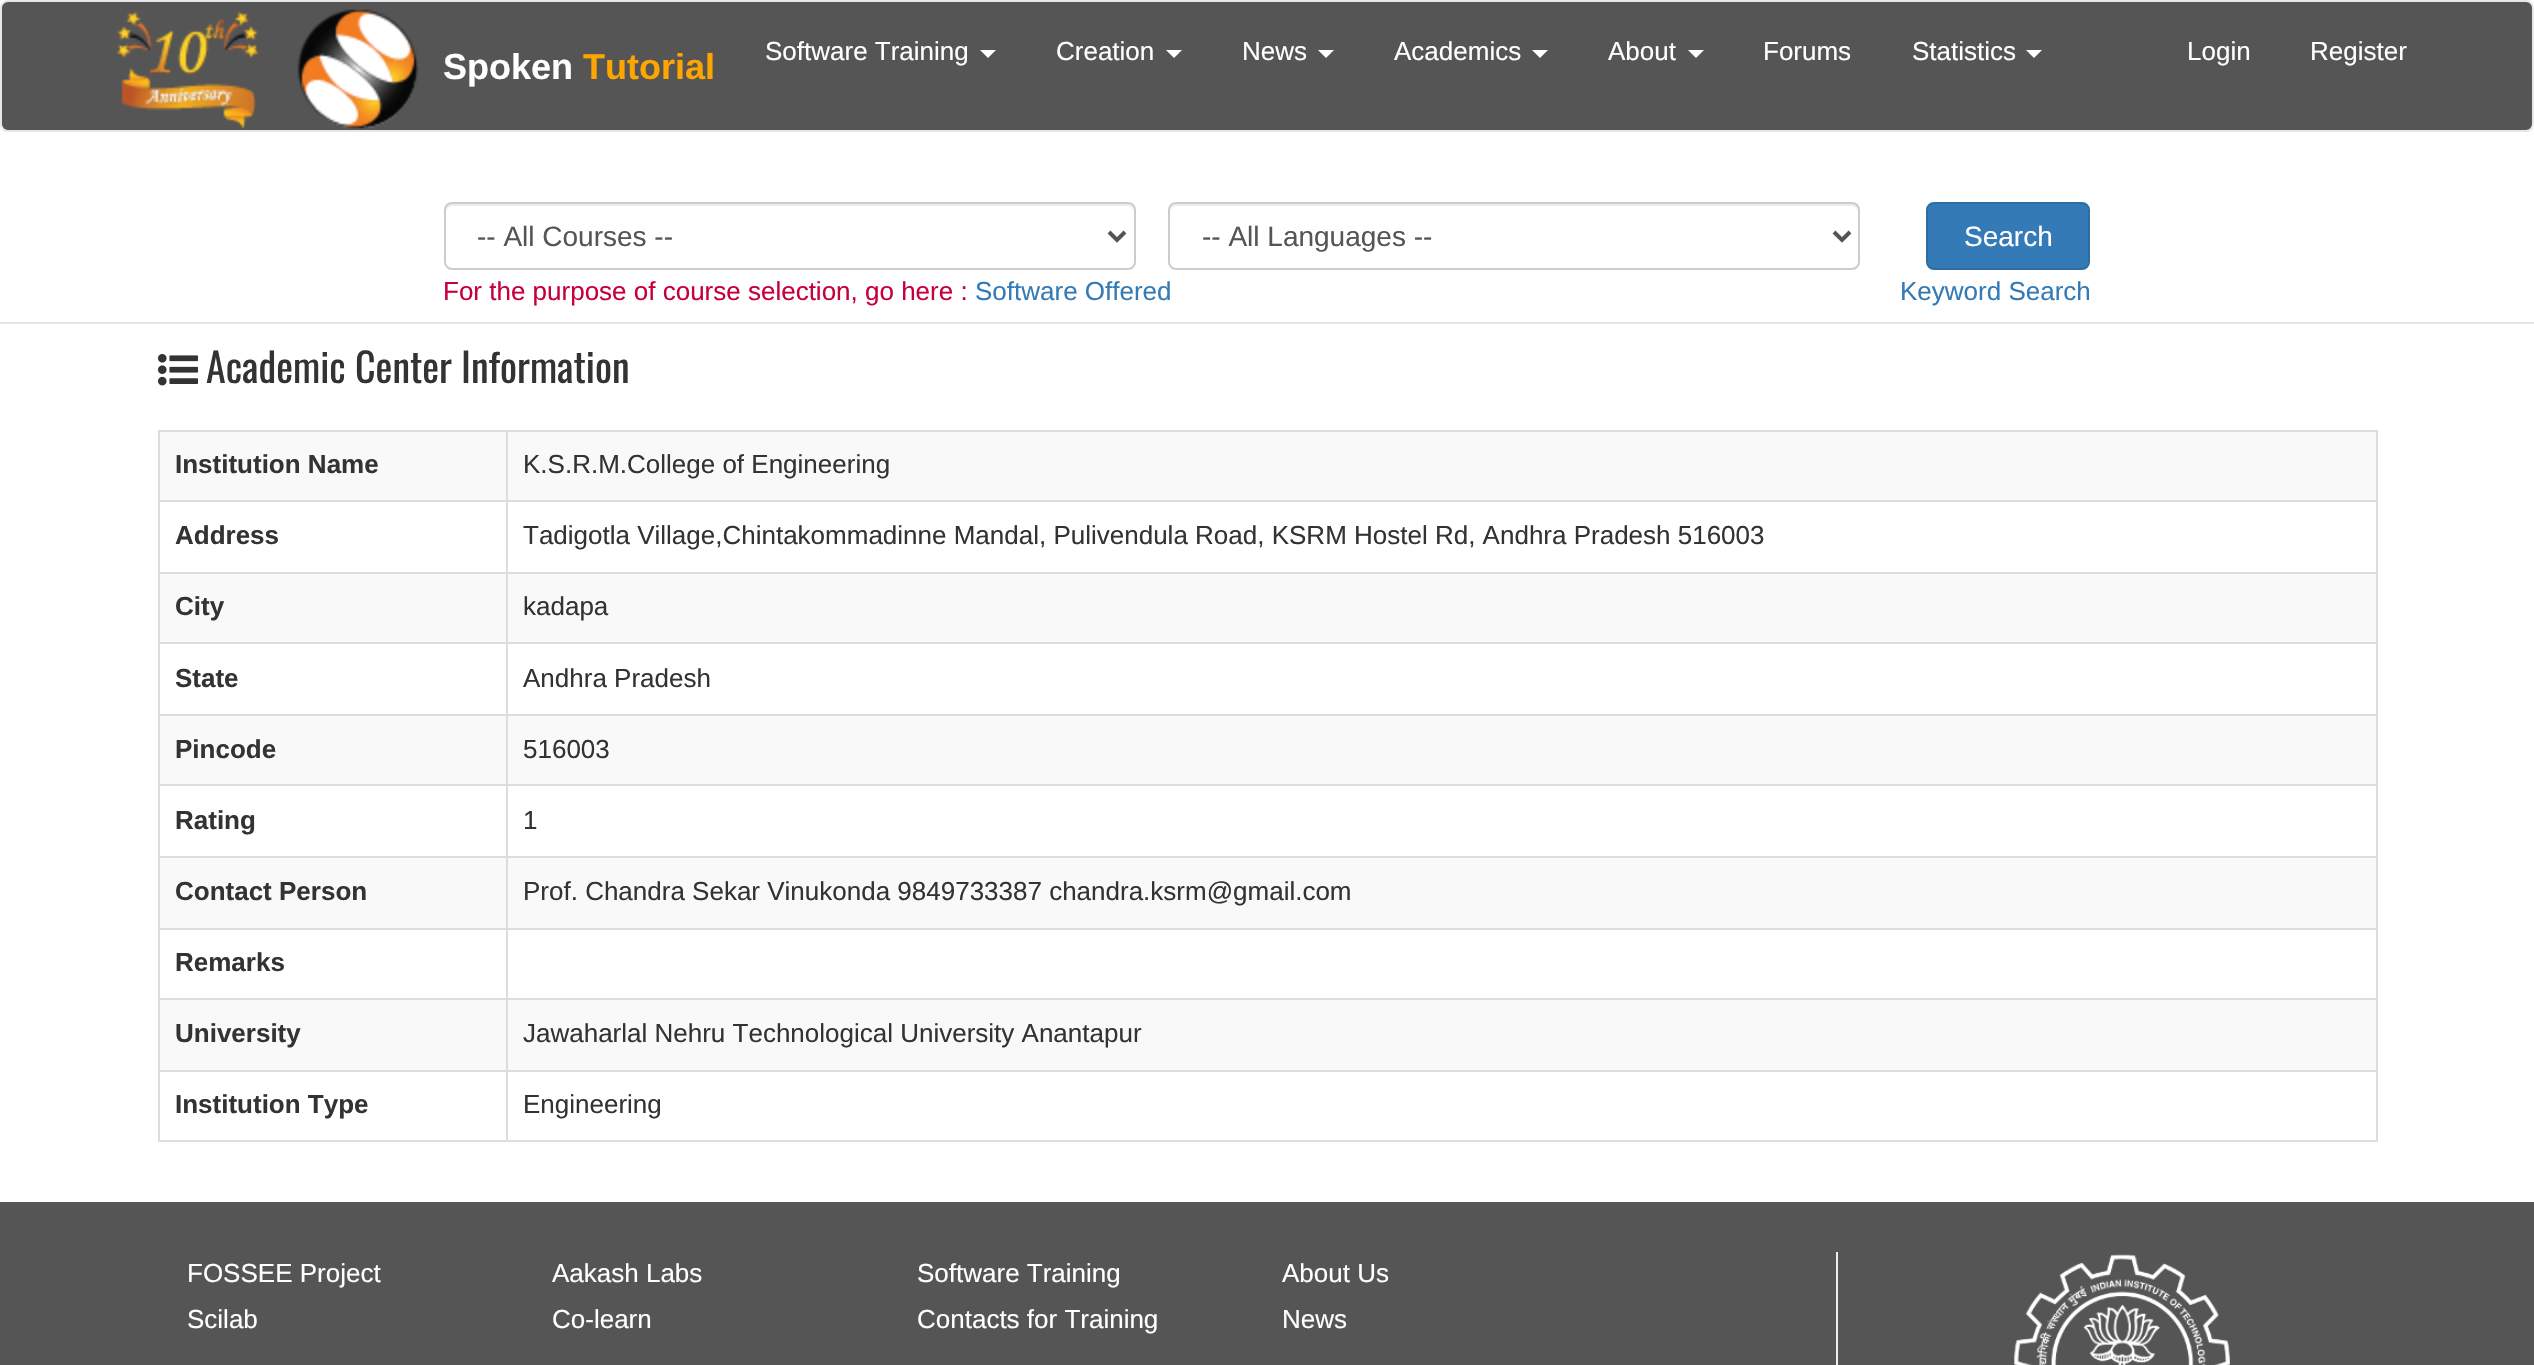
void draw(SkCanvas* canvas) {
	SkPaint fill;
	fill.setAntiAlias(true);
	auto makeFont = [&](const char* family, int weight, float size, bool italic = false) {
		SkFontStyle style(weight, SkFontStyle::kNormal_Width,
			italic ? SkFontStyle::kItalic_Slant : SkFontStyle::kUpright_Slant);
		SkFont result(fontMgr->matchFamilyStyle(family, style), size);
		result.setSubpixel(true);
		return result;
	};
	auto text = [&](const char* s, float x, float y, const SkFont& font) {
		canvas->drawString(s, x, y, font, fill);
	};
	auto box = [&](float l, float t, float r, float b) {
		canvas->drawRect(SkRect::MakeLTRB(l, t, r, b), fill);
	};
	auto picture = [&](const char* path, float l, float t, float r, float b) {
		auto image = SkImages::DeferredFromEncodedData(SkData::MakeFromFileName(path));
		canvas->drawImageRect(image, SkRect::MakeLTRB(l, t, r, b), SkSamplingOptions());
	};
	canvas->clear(0xFFFFFFFF);
	fill.setColor(0xFF555555);
	canvas->drawRoundRect(SkRect::MakeLTRB(1, 1, 2533, 131), 7, 7, fill);
	fill.setStyle(SkPaint::kStroke_Style);
	fill.setStrokeWidth(2);
	fill.setColor(0xFFE7E7E7);
	canvas->drawRoundRect(SkRect::MakeLTRB(1, 1, 2533, 131), 7, 7, fill);
	picture("image0.png", 116, 9, 419, 129);
	fill.setStyle(SkPaint::kFill_Style);
	fill.setColor(0xFFFFFFFF);
	canvas->drawPath(SkPathBuilder().moveTo(980, 50).lineTo(996, 50).lineTo(988, 58).close().detach(), fill);
	canvas->drawPath(SkPathBuilder().moveTo(1166, 50).lineTo(1182, 50).lineTo(1174, 58).close().detach(), fill);
	canvas->drawPath(SkPathBuilder().moveTo(1318, 50).lineTo(1334, 50).lineTo(1326, 58).close().detach(), fill);
	canvas->drawPath(SkPathBuilder().moveTo(1532, 50).lineTo(1548, 50).lineTo(1540, 58).close().detach(), fill);
	canvas->drawPath(SkPathBuilder().moveTo(1688, 50).lineTo(1704, 50).lineTo(1696, 58).close().detach(), fill);
	canvas->drawPath(SkPathBuilder().moveTo(2026, 50).lineTo(2042, 50).lineTo(2034, 58).close().detach(), fill);
	fill.setColor(0xFFE4E5E5);
	box(0, 322, 2534, 324);
	fill.setColor(0xFFECECEC);
	canvas->drawPath(SkPathBuilder().moveTo(452, 206).lineTo(1128, 206).cubicTo(1131, 206, 1134, 209, 1134, 212).cubicTo(1134, 208, 1133, 204, 1128, 204).lineTo(452, 204).cubicTo(447, 204, 446, 208, 446, 212).cubicTo(446, 209, 449, 206, 452, 206).close().detach(), fill);
	fill.setStyle(SkPaint::kStroke_Style);
	fill.setColor(0xFFCCCCCC);
	canvas->drawRoundRect(SkRect::MakeLTRB(445, 203, 1135, 269), 7, 7, fill);
	fill.setStrokeWidth(4);
	fill.setColor(0xFF555555);
	canvas->drawPath(SkPathBuilder().moveTo(1109, 232).lineTo(1117, 240).lineTo(1125, 232).detach(), fill);
	fill.setStyle(SkPaint::kFill_Style);
	fill.setColor(0xFFECECEC);
	canvas->drawPath(SkPathBuilder().moveTo(1176, 206).lineTo(1852, 206).cubicTo(1855, 206, 1858, 209, 1858, 212).cubicTo(1858, 208, 1857, 204, 1852, 204).lineTo(1176, 204).cubicTo(1171, 204, 1170, 208, 1170, 212).cubicTo(1170, 209, 1173, 206, 1176, 206).close().detach(), fill);
	fill.setStyle(SkPaint::kStroke_Style);
	fill.setStrokeWidth(2);
	fill.setColor(0xFFCCCCCC);
	canvas->drawRoundRect(SkRect::MakeLTRB(1169, 203, 1859, 269), 7, 7, fill);
	fill.setStrokeWidth(4);
	fill.setColor(0xFF555555);
	canvas->drawPath(SkPathBuilder().moveTo(1834, 232).lineTo(1842, 240).lineTo(1850, 232).detach(), fill);
	fill.setStyle(SkPaint::kFill_Style);
	fill.setColor(0xFF337AB7);
	canvas->drawRoundRect(SkRect::MakeLTRB(1927, 203, 2089, 269), 7, 7, fill);
	fill.setStyle(SkPaint::kStroke_Style);
	fill.setStrokeWidth(2);
	fill.setColor(0xFF2E6DA4);
	canvas->drawRoundRect(SkRect::MakeLTRB(1927, 203, 2089, 269), 7, 7, fill);
	picture("image1.png", 158, 354, 198, 386);
	fill.setStyle(SkPaint::kFill_Style);
	fill.setColor(0xFFDDDDDD);
	box(158, 430, 2378, 432);
	box(2376, 430, 2378, 1142);
	box(158, 1140, 2378, 1142);
	box(158, 430, 160, 1142);
	fill.setColor(0xFFF9F9F9);
	box(160, 432, 2376, 500);
	fill.setColor(0xFFDDDDDD);
	box(506, 500, 2378, 502);
	box(506, 572, 2378, 574);
	fill.setColor(0xFFF9F9F9);
	box(160, 574, 2376, 642);
	fill.setColor(0xFFDDDDDD);
	box(506, 642, 2378, 644);
	box(506, 714, 2378, 716);
	fill.setColor(0xFFF9F9F9);
	box(160, 716, 2376, 784);
	fill.setColor(0xFFDDDDDD);
	box(506, 784, 2378, 786);
	box(506, 856, 2378, 858);
	fill.setColor(0xFFF9F9F9);
	box(160, 858, 2376, 928);
	fill.setColor(0xFFDDDDDD);
	box(506, 928, 2378, 930);
	box(506, 998, 2378, 1000);
	fill.setColor(0xFFF9F9F9);
	box(160, 1000, 2376, 1070);
	fill.setColor(0xFFDDDDDD);
	box(506, 1070, 2378, 1072);
	box(506, 1070, 508, 1142);
	box(158, 1070, 508, 1072);
	box(506, 998, 508, 1072);
	box(158, 998, 508, 1000);
	box(506, 928, 508, 1000);
	box(158, 928, 508, 930);
	box(506, 856, 508, 930);
	box(158, 856, 508, 858);
	box(506, 784, 508, 858);
	box(158, 784, 508, 786);
	box(506, 714, 508, 786);
	box(158, 714, 508, 716);
	box(506, 642, 508, 716);
	box(158, 642, 508, 644);
	box(506, 572, 508, 644);
	box(158, 572, 508, 574);
	box(506, 500, 508, 574);
	box(158, 500, 508, 502);
	box(506, 430, 508, 502);
	fill.setColor(0xFF555555);
	box(0, 1202, 2534, 1365);
	fill.setColor(0xFFEEEEEE);
	box(1836, 1252, 1838, 1365);
	picture("image2.png", 2014, 1254, 2230, 1365);
	auto font1 = makeFont("Liberation Sans", 700, 36);
	fill.setColor(0xFFFFFFFF);
	text("Spoken", 443, 79, font1);
	fill.setColor(0xFFFFA500);
	text("Tutorial", 583, 79, font1);
	auto font2 = makeFont("Liberation Sans", 400, 26);
	fill.setColor(0xFFFFFFFF);
	text("Software Training", 765, 60, font2);
	text("Creation", 1056, 60, font2);
	text("News", 1242, 60, font2);
	text("Academics", 1394, 60, font2);
	text("About", 1608, 60, font2);
	text("Forums", 1763, 60, font2);
	text("Statistics", 1912, 60, font2);
	text("Login", 2187, 60, font2);
	text("Register", 2310, 60, font2);
	auto font3 = makeFont("Liberation Sans", 400, 28);
	fill.setColor(0xFF555555);
	text("-- All Courses --", 477, 246, font3);
	text("-- All Languages --", 1202, 246, font3);
	fill.setColor(0xFFFFFFFF);
	text("Search", 1964, 246, font3);
	fill.setColor(0xFFC70039);
	text("For the purpose of course selection, go here :", 443, 300, font2);
	fill.setColor(0xFF337AB7);
	text("Software Offered", 975, 300, font2);
	text("Keyword Search", 1900, 300, font2);
	auto font4 = makeFont("Oswald", 400, 40);
	fill.setColor(0xFF333333);
	text("Academic Center Information", 206, 383, font4);
	auto font5 = makeFont("Liberation Sans", 700, 26);
	text("Institution Name", 175, 473, font5);
	text("K.S.R.M.College of Engineering", 523, 473, font2);
	text("Address", 175, 544, font5);
	text("Tadigotla Village,Chintakommadinne Mandal, Pulivendula Road, KSRM Hostel Rd, Andhra Pradesh 516003", 523, 544, font2);
	text("City", 175, 615, font5);
	text("kadapa", 523, 615, font2);
	text("State", 175, 687, font5);
	text("Andhra Pradesh", 523, 687, font2);
	text("Pincode", 175, 758, font5);
	text("516003", 523, 758, font2);
	text("Rating", 175, 829, font5);
	text("1", 523, 829, font2);
	text("Contact Person", 175, 900, font5);
	text("Prof. Chandra Sekar Vinukonda 9849733387 chandra.ksrm@gmail.com", 523, 900, font2);
	text("Remarks", 175, 971, font5);
	text("University", 175, 1042, font5);
	text("Jawaharlal Nehru Technological University Anantapur", 523, 1042, font2);
	text("Institution Type", 175, 1113, font5);
	text("Engineering", 523, 1113, font2);
	fill.setColor(0xFFFFFFFF);
	text("FOSSEE Project", 187, 1282, font2);
	text("Scilab", 187, 1328, font2);
	text("Aakash Labs", 552, 1282, font2);
	text("Co-learn", 552, 1328, font2);
	text("Software Training", 917, 1282, font2);
	text("Contacts for Training", 917, 1328, font2);
	text("About Us", 1282, 1282, font2);
	text("News", 1282, 1328, font2);
}
